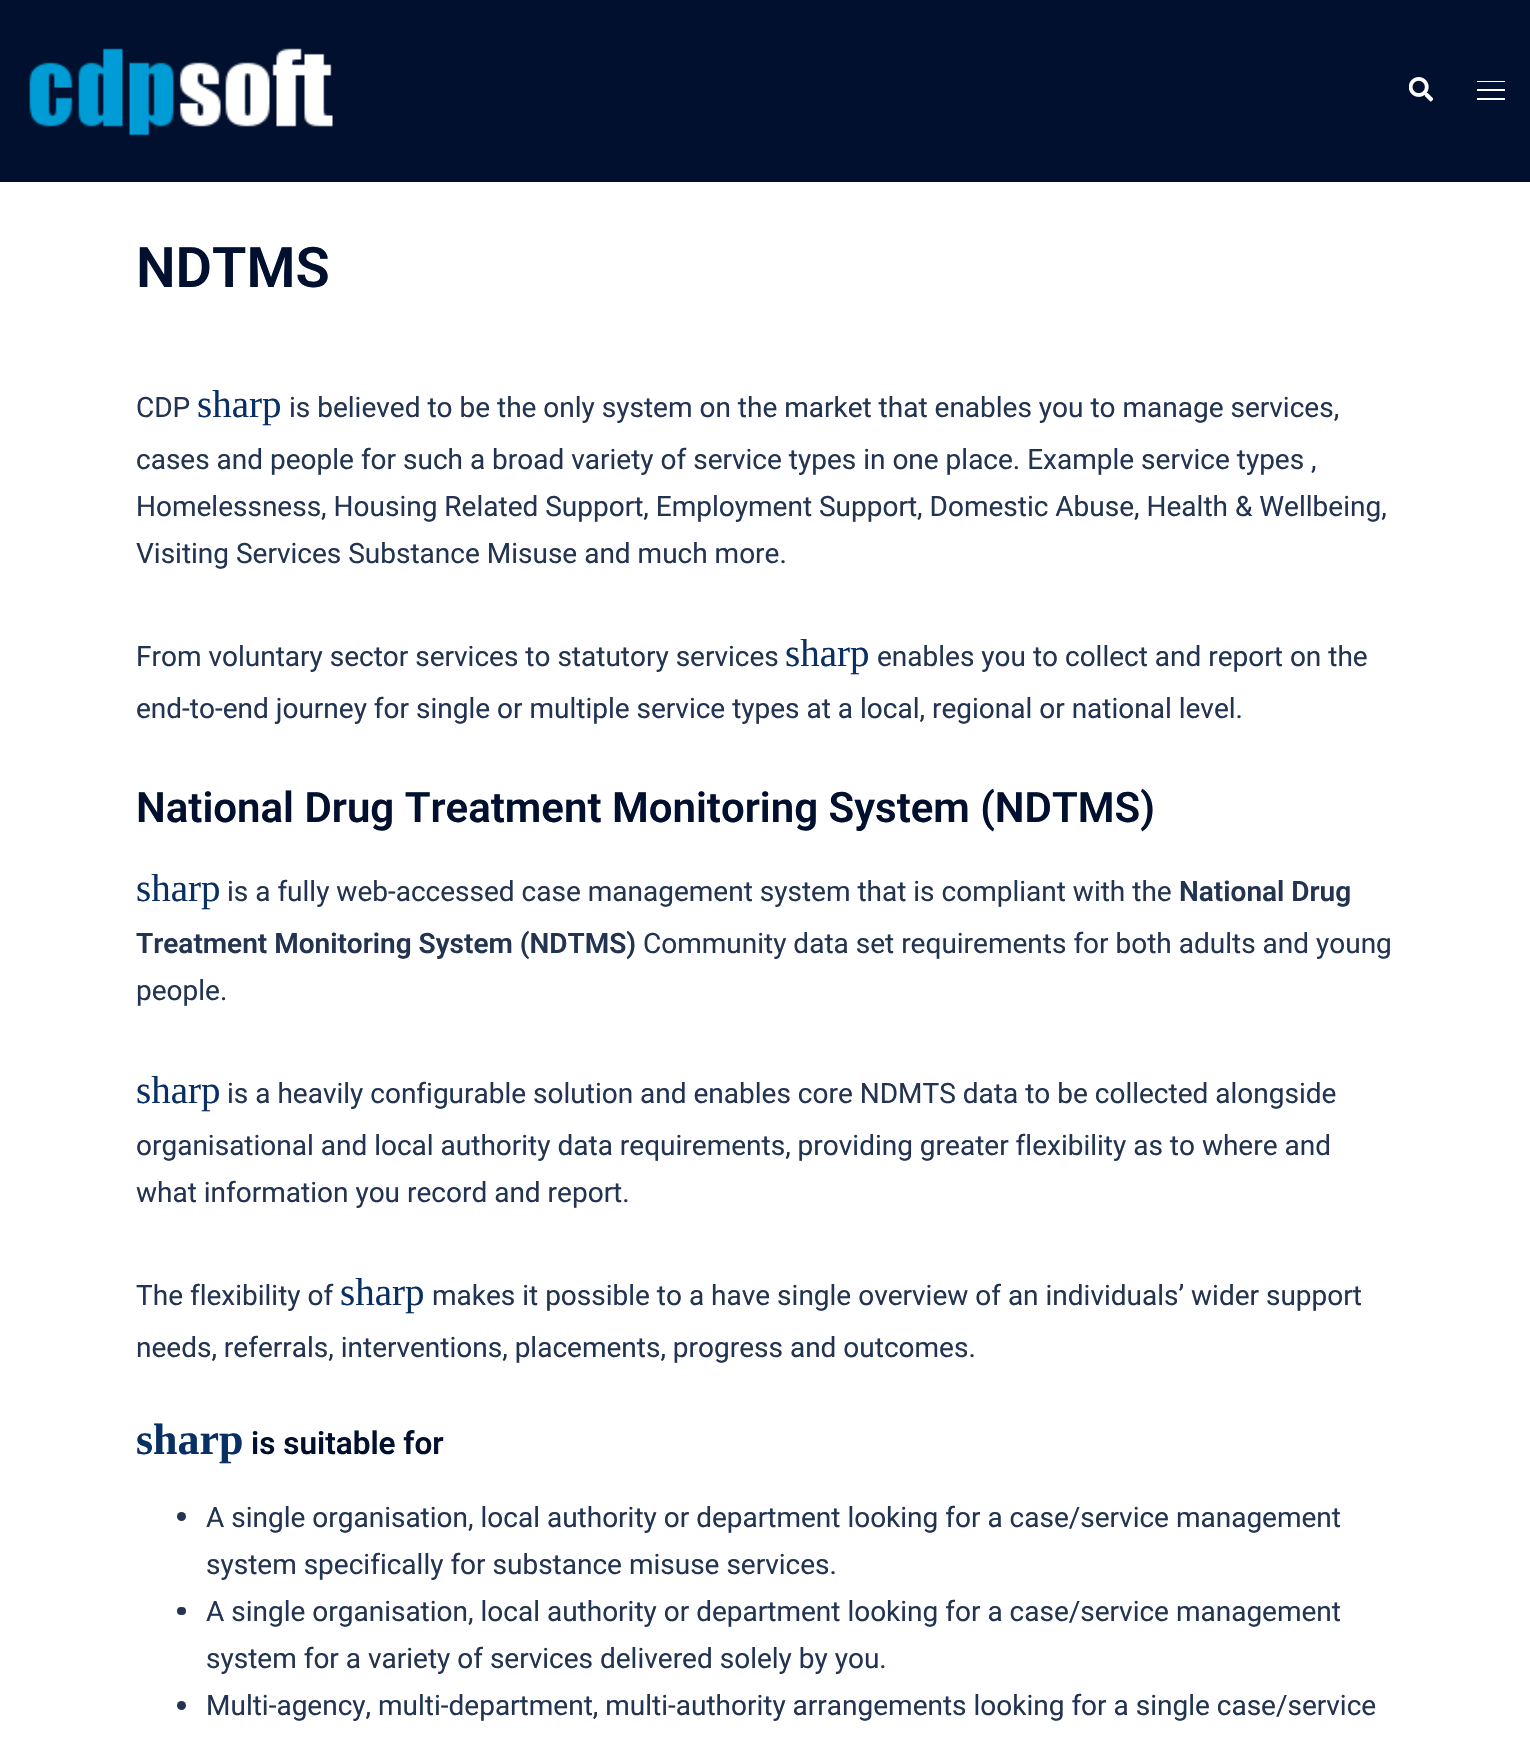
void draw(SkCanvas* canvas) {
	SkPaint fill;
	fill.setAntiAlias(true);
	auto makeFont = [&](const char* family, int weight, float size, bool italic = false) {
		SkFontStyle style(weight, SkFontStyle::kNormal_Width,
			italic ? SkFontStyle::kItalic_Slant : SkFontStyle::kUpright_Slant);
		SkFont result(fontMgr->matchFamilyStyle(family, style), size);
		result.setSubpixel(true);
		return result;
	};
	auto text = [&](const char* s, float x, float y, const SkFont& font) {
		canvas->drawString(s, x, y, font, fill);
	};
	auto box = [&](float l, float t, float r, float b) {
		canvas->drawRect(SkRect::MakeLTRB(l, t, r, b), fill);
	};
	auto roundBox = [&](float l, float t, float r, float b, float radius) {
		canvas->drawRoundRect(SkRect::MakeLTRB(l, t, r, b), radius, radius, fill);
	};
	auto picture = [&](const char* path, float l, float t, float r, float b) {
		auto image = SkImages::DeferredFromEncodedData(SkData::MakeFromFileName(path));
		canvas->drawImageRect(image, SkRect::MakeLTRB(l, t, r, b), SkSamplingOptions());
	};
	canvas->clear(0xFFFFFFFF);
	fill.setColor(0xFF00102E);
	box(0, 0, 1530, 182);
	picture("image0.png", 29, 48, 333, 136);
	picture("image1.png", 1409, 77, 1433, 102);
	fill.setColor(0xFFFFFFFF);
	box(1477, 81, 1505, 82);
	box(1477, 89, 1505, 91);
	box(1477, 98, 1505, 100);
	fill.setColor(0xFF233452);
	canvas->drawCircle(181.5f, 1516.5f, 4.5f, fill);
	roundBox(177, 1607, 186, 1615, 4);
	canvas->drawCircle(181.5f, 1705.5f, 4.5f, fill);
	auto font1 = makeFont("Roboto", 600, 56);
	fill.setColor(0xFF00102E);
	text("NDTMS", 136, 287, font1);
	auto font2 = makeFont("Roboto", 400, 28);
	fill.setColor(0xFF233452);
	text("CDP", 136, 417, font2);
	auto font3 = makeFont("Liberation Serif", 400, 39);
	fill.setColor(0xFF083064);
	text("sharp", 197, 417, font3);
	fill.setColor(0xFF233452);
	text("is believed to be the only system on the market that enables you to manage services,", 289, 417, font2);
	text("cases and people for such a broad variety of service types in one place. Example service types ,", 136, 469, font2);
	text("Homelessness, Housing Related Support, Employment Support, Domestic Abuse, Health & Wellbeing,", 136, 516, font2);
	text("Visiting Services Substance Misuse and much more.", 136, 563, font2);
	text("From voluntary sector services to statutory services", 136, 666, font2);
	fill.setColor(0xFF083064);
	text("sharp", 785, 666, font3);
	fill.setColor(0xFF233452);
	text("enables you to collect and report on the", 877, 666, font2);
	text("end-to-end journey for single or multiple service types at a local, regional or national level.", 136, 718, font2);
	auto font4 = makeFont("Roboto", 600, 42);
	fill.setColor(0xFF00102E);
	text("National Drug Treatment Monitoring System (NDTMS)", 136, 822, font4);
	fill.setColor(0xFF083064);
	text("sharp", 136, 901, font3);
	fill.setColor(0xFF233452);
	text("is a fully web-accessed case management system that is compliant with the", 227, 901, font2);
	auto font5 = makeFont("Roboto", 600, 28);
	text("National Drug", 1179, 901, font5);
	text("Treatment Monitoring System (NDTMS)", 136, 953, font5);
	text("Community data set requirements for both adults and young", 643, 953, font2);
	text("people.", 136, 1000, font2);
	fill.setColor(0xFF083064);
	text("sharp", 136, 1103, font3);
	fill.setColor(0xFF233452);
	text("is a heavily configurable solution and enables core NDMTS data to be collected alongside", 227, 1103, font2);
	text("organisational and local authority data requirements, providing greater flexibility as to where and", 136, 1155, font2);
	text("what information you record and report.", 136, 1202, font2);
	text("The flexibility of", 136, 1305, font2);
	fill.setColor(0xFF083064);
	text("sharp", 340, 1305, font3);
	fill.setColor(0xFF233452);
	text("makes it possible to a have single overview of an individuals’ wider support", 432, 1305, font2);
	text("needs, referrals, interventions, placements, progress and outcomes.", 136, 1357, font2);
	auto font6 = makeFont("Liberation Serif", 700, 44);
	fill.setColor(0xFF083064);
	text("sharp", 136, 1454, font6);
	auto font7 = makeFont("Roboto", 600, 31.5f);
	fill.setColor(0xFF00102E);
	text("is suitable for", 251, 1454, font7);
	fill.setColor(0xFF233452);
	text("A single organisation, local authority or department looking for a case/service management", 206, 1527, font2);
	text("system specifically for substance misuse services.", 206, 1574, font2);
	text("A single organisation, local authority or department looking for a case/service management", 206, 1621, font2);
	text("system for a variety of services delivered solely by you.", 206, 1668, font2);
	text("Multi-agency, multi-department, multi-authority arrangements looking for a single case/service", 206, 1715, font2);
}
